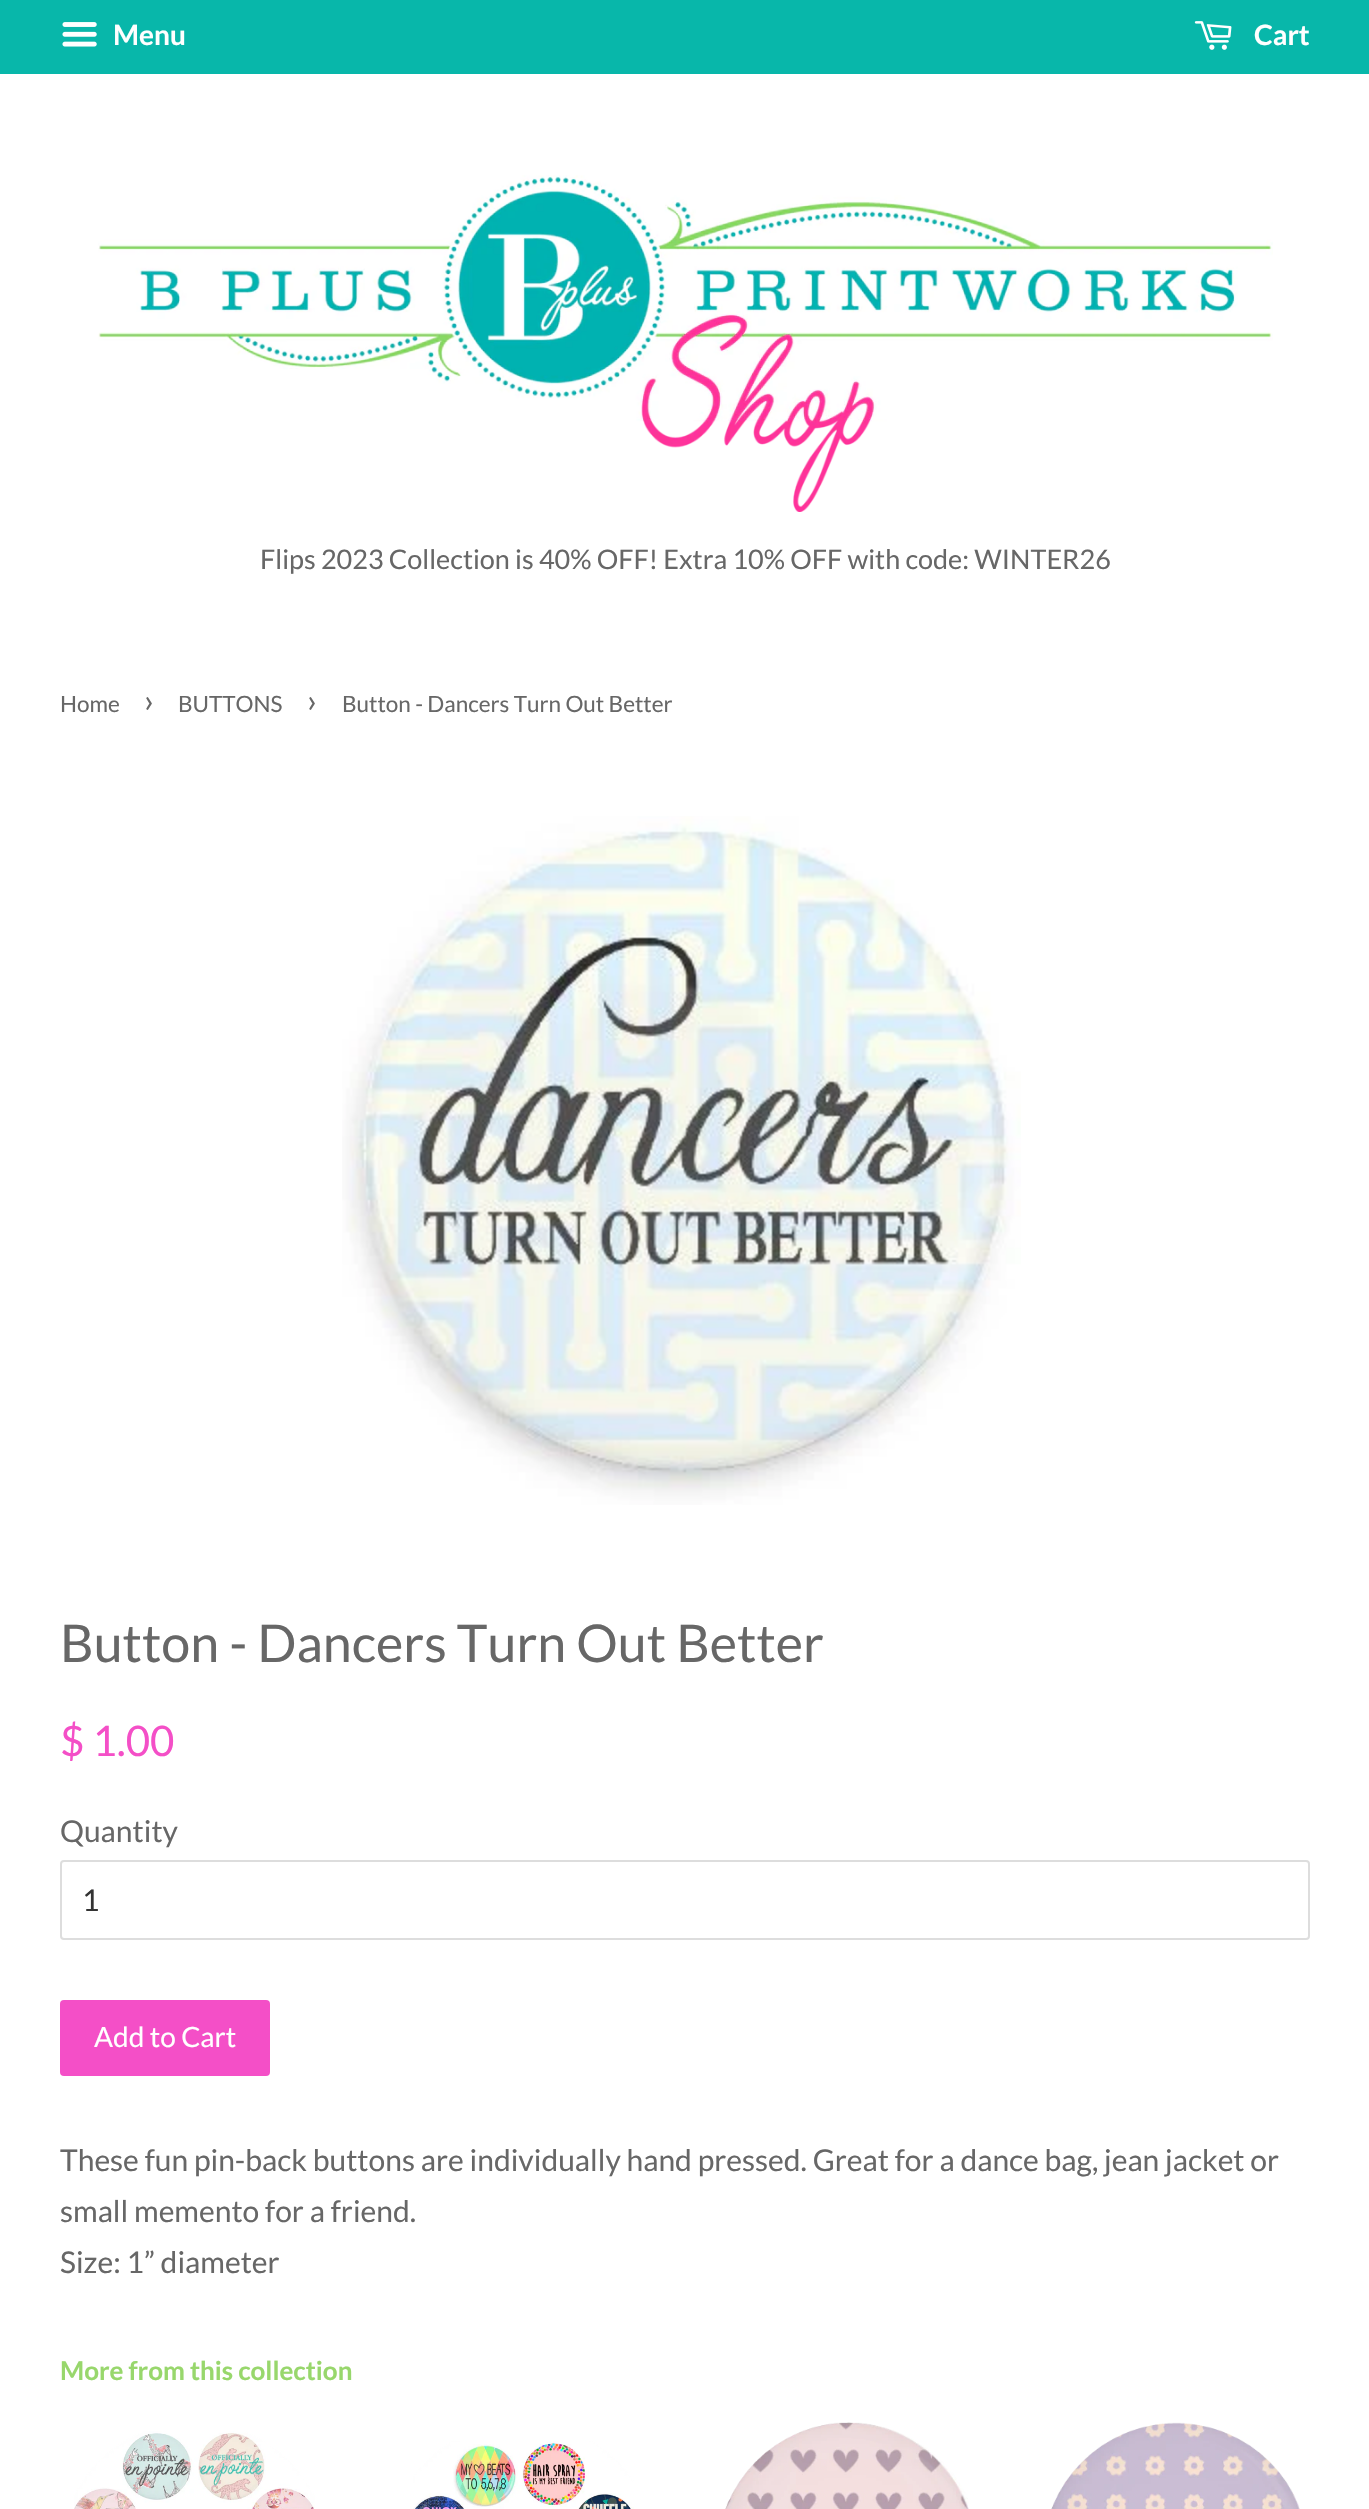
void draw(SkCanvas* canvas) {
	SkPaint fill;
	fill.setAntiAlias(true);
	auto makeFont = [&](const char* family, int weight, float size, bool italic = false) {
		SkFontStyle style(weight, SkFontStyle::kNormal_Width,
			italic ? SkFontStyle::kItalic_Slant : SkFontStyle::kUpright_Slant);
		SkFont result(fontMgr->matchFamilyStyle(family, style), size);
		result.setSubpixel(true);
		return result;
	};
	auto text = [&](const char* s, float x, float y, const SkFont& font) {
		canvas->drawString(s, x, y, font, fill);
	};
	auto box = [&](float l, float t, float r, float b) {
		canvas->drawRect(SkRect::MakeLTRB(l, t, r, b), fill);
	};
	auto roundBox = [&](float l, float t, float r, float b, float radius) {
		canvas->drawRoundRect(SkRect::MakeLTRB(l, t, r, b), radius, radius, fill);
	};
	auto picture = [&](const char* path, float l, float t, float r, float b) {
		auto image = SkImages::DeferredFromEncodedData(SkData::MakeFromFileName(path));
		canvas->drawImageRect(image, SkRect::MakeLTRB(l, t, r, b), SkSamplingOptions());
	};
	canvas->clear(0xFFFFFFFF);
	fill.setColor(0xFF08B7AA);
	box(0, 0, 1369, 74);
	picture("image0.png", 62, 22, 97, 47);
	picture("image1.png", 1194, 21, 1232, 50);
	picture("image2.png", 98, 175, 1273, 512);
	picture("image3.png", 342, 816, 1021, 1505);
	fill.setStyle(SkPaint::kStroke_Style);
	fill.setStrokeWidth(2);
	fill.setColor(0xFFDDDDDD);
	canvas->drawRoundRect(SkRect::MakeLTRB(61, 1861, 1309, 1939), 3, 3, fill);
	fill.setStyle(SkPaint::kFill_Style);
	fill.setColor(0xFFF44FC7);
	roundBox(60, 2000, 270, 2076, 4);
	picture("image4.png", 74, 2431, 315, 2509);
	picture("image5.png", 413, 2441, 634, 2509);
	picture("image6.png", 725, 2422, 969, 2509);
	picture("image7.png", 1051, 2422, 1300, 2509);
	auto font1 = makeFont("Lato", 700, 28);
	fill.setColor(0xFFFFFFFF);
	text("Menu", 113, 45, font1);
	text("Cart", 1254, 45, font1);
	auto font2 = makeFont("Lato", 400, 27);
	fill.setColor(0xFF676767);
	text("Flips 2023 Collection is 40% OFF! Extra 10% OFF with code: WINTER26", 260, 569, font2);
	auto font3 = makeFont("Lato", 400, 22.5f);
	text("Home", 60, 712, font3);
	auto font4 = makeFont("Lato", 400, 32);
	text("›", 144, 712, font4);
	text("BUTTONS", 178, 712, font3);
	text("›", 307, 712, font4);
	text("Button - Dancers Turn Out Better", 342, 712, font3);
	auto font5 = makeFont("Lato", 400, 52);
	text("Button - Dancers Turn Out Better", 60, 1662, font5);
	auto font6 = makeFont("Lato", 400, 42);
	fill.setColor(0xFFF44FC7);
	text("$ 1.00", 60, 1756, font6);
	auto font7 = makeFont("Lato", 400, 30);
	fill.setColor(0xFF676767);
	text("Quantity", 60, 1842, font7);
	fill.setColor(0xFF333333);
	text("1", 82, 1911, font7);
	auto font8 = makeFont("Lato", 400, 28);
	fill.setColor(0xFFFFFFFF);
	text("Add to Cart", 94, 2047, font8);
	fill.setColor(0xFF676767);
	text("These fun pin-back buttons are individually hand pressed. Great for a dance bag, jean jacket or", 60, 2171, font7);
	text("small memento for a friend.", 60, 2222, font7);
	text("Size: 1” diameter", 60, 2273, font7);
	auto font9 = makeFont("Lato", 700, 26);
	fill.setColor(0xFF98D76C);
	text("More from this collection", 60, 2380, font9);
}
